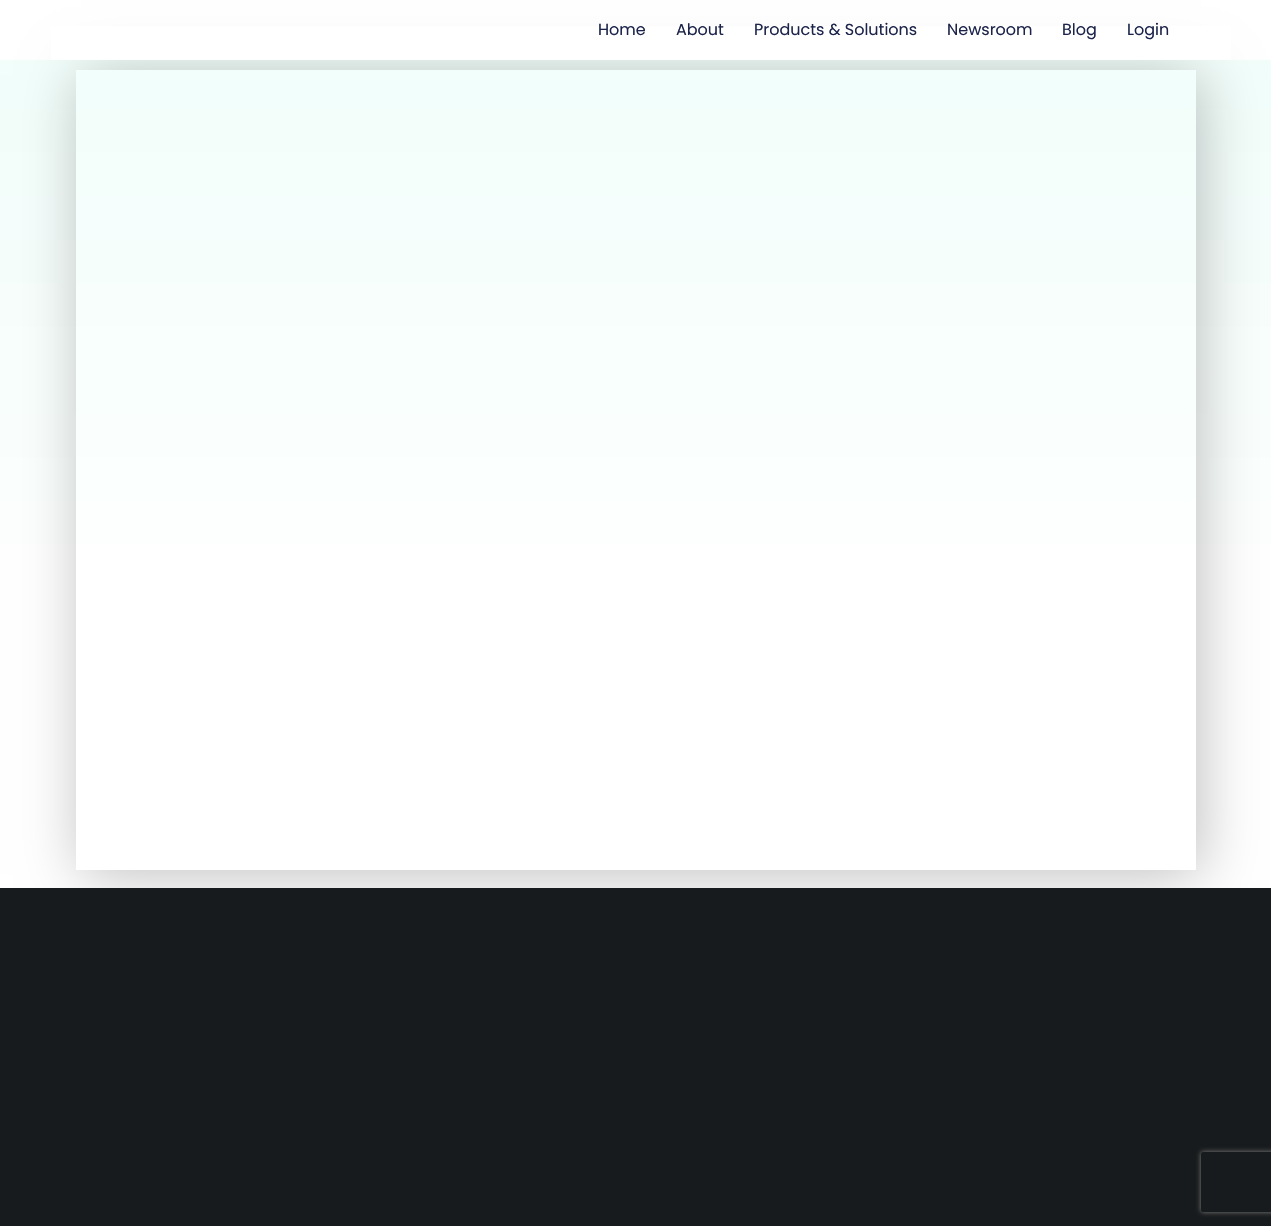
void draw(SkCanvas* canvas) {
	SkPaint fill;
	fill.setAntiAlias(true);
	auto makeFont = [&](const char* family, int weight, float size, bool italic = false) {
		SkFontStyle style(weight, SkFontStyle::kNormal_Width,
			italic ? SkFontStyle::kItalic_Slant : SkFontStyle::kUpright_Slant);
		SkFont result(fontMgr->matchFamilyStyle(family, style), size);
		result.setSubpixel(true);
		return result;
	};
	auto text = [&](const char* s, float x, float y, const SkFont& font) {
		canvas->drawString(s, x, y, font, fill);
	};
	auto box = [&](float l, float t, float r, float b) {
		canvas->drawRect(SkRect::MakeLTRB(l, t, r, b), fill);
	};
	canvas->clear(0xFFFFFFFF);
	{
		const SkColor colors[] = {0xFFFFFFFF, 0xFFF0FEFA};
		const float stops[] = {0.64f, 1};
		const SkPoint ends[] = {{636, 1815}, {636, 0}};
		fill.setShader(SkGradientShader::MakeLinear(ends, colors, stops, 2, SkTileMode::kClamp));
		fill.setAlpha(255);
	}
	box(0, 60, 1271, 544);
	canvas->save();
	canvas->clipPath(SkPathBuilder(SkPathFillType::kEvenOdd).moveTo(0, 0).lineTo(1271, 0).lineTo(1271, 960).lineTo(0, 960).close().moveTo(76, 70).lineTo(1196, 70).lineTo(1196, 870).lineTo(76, 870).close().detach(), true);
	fill.setShader(nullptr);
	fill.setColor(0x40000000);
	fill.setMaskFilter(SkMaskFilter::MakeBlur(kNormal_SkBlurStyle, 28));
	canvas->drawRect(SkRect::MakeLTRB(81, 75, 1201, 875), fill);
	fill.setMaskFilter(nullptr);
	canvas->restore();
	fill.setColor(0xFFFFFFFF);
	box(51, 26, 1231, 60);
	fill.setColor(0xF7111416);
	box(0, 888, 1271, 1226);
	canvas->save();
	canvas->clipPath(SkPathBuilder(SkPathFillType::kEvenOdd).moveTo(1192, 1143).lineTo(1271, 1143).lineTo(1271, 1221).lineTo(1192, 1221).close().moveTo(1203, 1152).lineTo(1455, 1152).cubicTo(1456, 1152, 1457, 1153, 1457, 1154).lineTo(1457, 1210).cubicTo(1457, 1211, 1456, 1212, 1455, 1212).lineTo(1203, 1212).cubicTo(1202, 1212, 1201, 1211, 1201, 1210).lineTo(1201, 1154).cubicTo(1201, 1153, 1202, 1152, 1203, 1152).close().detach(), true);
	fill.setColor(0xFF808080);
	fill.setMaskFilter(SkMaskFilter::MakeBlur(kNormal_SkBlurStyle, 2.5f));
	canvas->drawRoundRect(SkRect::MakeLTRB(1201, 1152, 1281, 1212), 2, 2, fill);
	fill.setMaskFilter(nullptr);
	canvas->restore();
	auto font1 = makeFont("Poppins", 400, 16);
	fill.setColor(0xFF1C244B);
	text("Home", 598, 35, font1);
	text("About", 676, 35, font1);
	text("Products & Solutions", 754, 35, font1);
	text("Newsroom", 947, 35, font1);
	text("Blog", 1062, 35, font1);
	text("Login", 1127, 35, font1);
}
